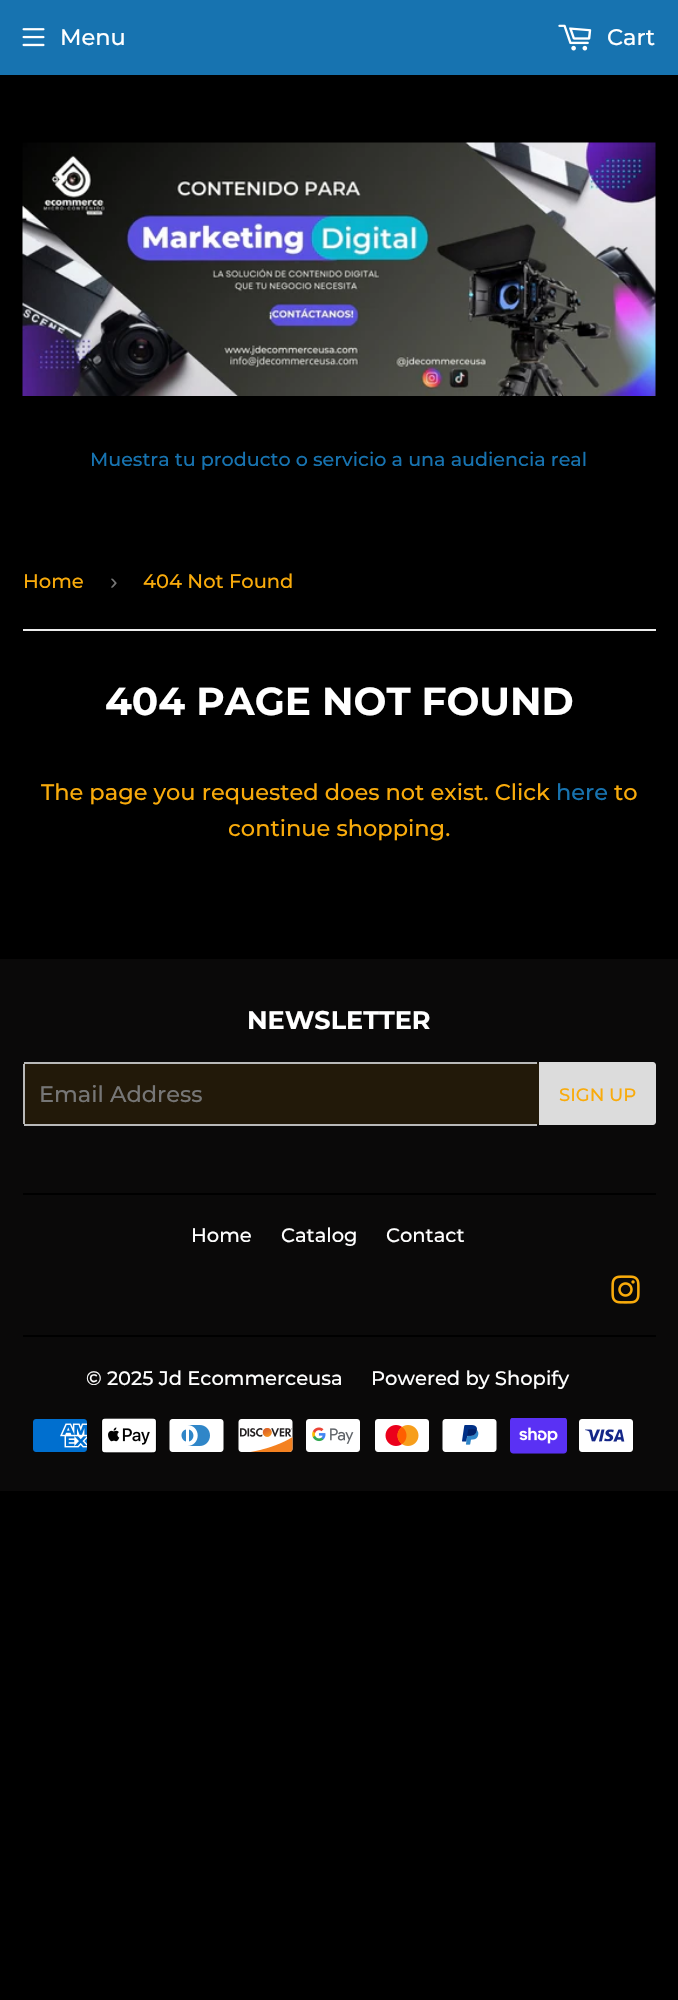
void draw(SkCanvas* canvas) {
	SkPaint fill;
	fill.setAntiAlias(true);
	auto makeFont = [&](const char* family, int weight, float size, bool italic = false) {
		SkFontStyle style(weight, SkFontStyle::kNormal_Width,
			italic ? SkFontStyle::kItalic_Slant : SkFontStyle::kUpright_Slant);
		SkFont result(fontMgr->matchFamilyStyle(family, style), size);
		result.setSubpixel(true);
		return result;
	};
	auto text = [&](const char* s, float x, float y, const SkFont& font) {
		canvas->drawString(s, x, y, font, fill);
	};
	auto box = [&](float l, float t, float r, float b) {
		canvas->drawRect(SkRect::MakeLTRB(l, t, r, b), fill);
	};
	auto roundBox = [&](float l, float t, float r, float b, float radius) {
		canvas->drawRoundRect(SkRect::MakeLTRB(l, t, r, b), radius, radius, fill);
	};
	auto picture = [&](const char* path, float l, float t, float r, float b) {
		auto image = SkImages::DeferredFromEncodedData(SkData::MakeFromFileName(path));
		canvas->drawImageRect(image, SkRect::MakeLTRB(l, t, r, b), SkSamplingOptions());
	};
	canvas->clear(0xFF000000);
	fill.setColor(0xFF1773B0);
	box(0, 0, 678, 75);
	picture("image0.png", 22, 28, 45, 47);
	picture("image1.png", 558, 24, 592, 51);
	picture("image2.png", 22, 142, 656, 396);
	fill.setColor(0xFFECECEC);
	box(23, 629, 656, 631);
	fill.setColor(0xFF0A0909);
	box(0, 959, 678, 1491);
	fill.setColor(0xFF221909);
	roundBox(23, 1062, 539, 1125, 3);
	fill.setColor(0xFFB9B9B9);
	box(24, 1062, 537, 1064);
	box(24, 1124, 537, 1126);
	box(23, 1064, 25, 1124);
	fill.setColor(0xFFDCDCDC);
	canvas->drawPath(SkPathBuilder().moveTo(539, 1062).lineTo(653, 1062).cubicTo(654.5f, 1062, 656, 1063.5f, 656, 1065).lineTo(656, 1122).cubicTo(656, 1123.5f, 654.5f, 1125, 653, 1125).lineTo(539, 1125).close().detach(), fill);
	fill.setColor(0xFF000000);
	box(23, 1193, 656, 1195);
	picture("image3.png", 611, 1275, 640, 1304);
	box(23, 1335, 656, 1337);
	picture("image4.png", 33, 1419, 87, 1452);
	picture("image5.png", 101, 1418, 157, 1454);
	picture("image6.png", 169, 1419, 224, 1452);
	picture("image7.png", 238, 1419, 293, 1452);
	picture("image8.png", 306, 1419, 360, 1452);
	picture("image9.png", 375, 1419, 429, 1452);
	picture("image10.png", 442, 1419, 497, 1452);
	picture("image11.png", 510, 1418, 567, 1454);
	picture("image12.png", 579, 1419, 633, 1452);
	auto font1 = makeFont("Montserrat", 500, 22.5f);
	fill.setColor(0xFFFFFFFF);
	text("Menu", 60, 45, font1);
	text("Cart", 607, 45, font1);
	auto font2 = makeFont("Montserrat", 500, 19.1f);
	fill.setColor(0xFF1773B0);
	text("Muestra tu producto o servicio a una audiencia real", 90, 466, font2);
	auto font3 = makeFont("Montserrat", 500, 19.5f);
	fill.setColor(0xFFF9AB0B);
	text("Home", 23, 588, font3);
	auto font4 = makeFont("Liberation Sans", 400, 22.5f);
	fill.setColor(0xFF767676);
	text("›", 110, 589, font4);
	fill.setColor(0xFFF9AB0B);
	text("404 Not Found", 143, 588, font3);
	auto font5 = makeFont("Montserrat", 700, 39);
	fill.setColor(0xFFFFFFFF);
	text("404 PAGE NOT FOUND", 105, 715, font5);
	fill.setColor(0xFFF9AB0B);
	text("The page you requested does not exist. Click", 41, 800, font1);
	fill.setColor(0xFF1773B0);
	text("here", 556, 800, font1);
	fill.setColor(0xFFF9AB0B);
	text("to", 614, 800, font1);
	text("continue shopping.", 228, 836, font1);
	auto font6 = makeFont("Montserrat", 700, 25.5f);
	fill.setColor(0xFFFFFFFF);
	text("NEWSLETTER", 247, 1029, font6);
	fill.setColor(0xFF767676);
	text("Email Address", 39, 1102, font1);
	auto font7 = makeFont("Montserrat", 500, 18);
	fill.setColor(0xFFF9AB0B);
	text("SIGN UP", 559, 1101, font7);
	fill.setColor(0xFFFFFFFF);
	text("Home", 191, 1242, font3);
	text("Catalog", 281, 1242, font3);
	text("Contact", 386, 1242, font3);
	text("© 2025 Jd Ecommerceusa", 86, 1385, font3);
	text("Powered by Shopify", 371, 1385, font3);
}
